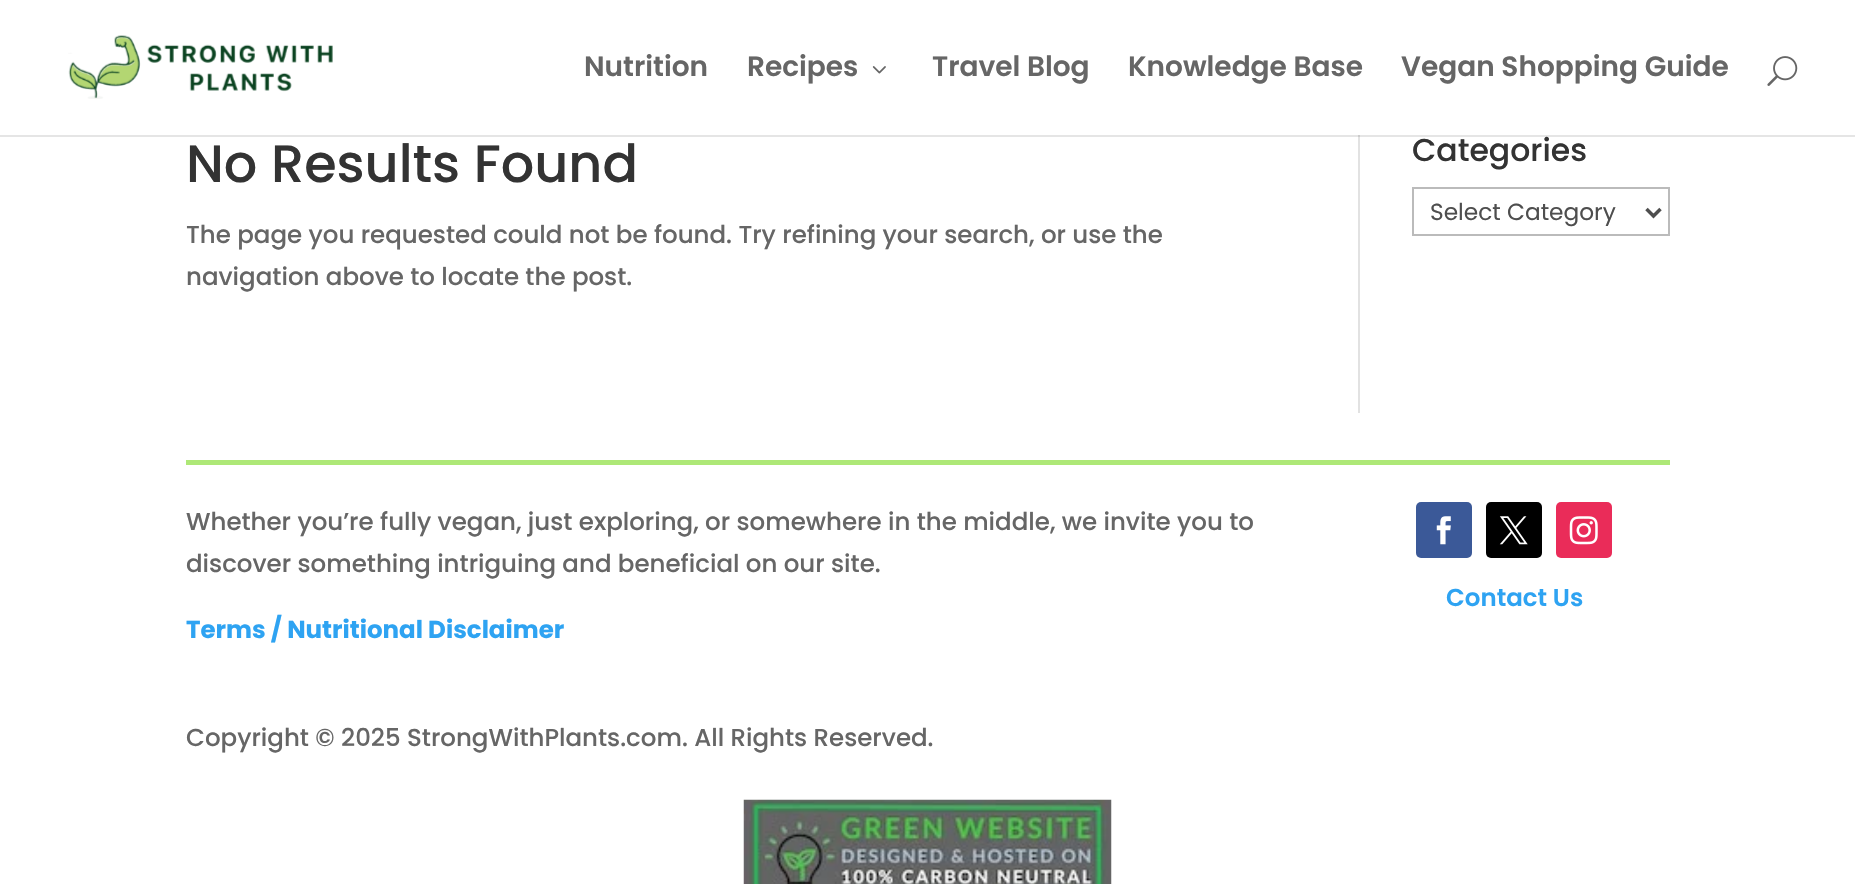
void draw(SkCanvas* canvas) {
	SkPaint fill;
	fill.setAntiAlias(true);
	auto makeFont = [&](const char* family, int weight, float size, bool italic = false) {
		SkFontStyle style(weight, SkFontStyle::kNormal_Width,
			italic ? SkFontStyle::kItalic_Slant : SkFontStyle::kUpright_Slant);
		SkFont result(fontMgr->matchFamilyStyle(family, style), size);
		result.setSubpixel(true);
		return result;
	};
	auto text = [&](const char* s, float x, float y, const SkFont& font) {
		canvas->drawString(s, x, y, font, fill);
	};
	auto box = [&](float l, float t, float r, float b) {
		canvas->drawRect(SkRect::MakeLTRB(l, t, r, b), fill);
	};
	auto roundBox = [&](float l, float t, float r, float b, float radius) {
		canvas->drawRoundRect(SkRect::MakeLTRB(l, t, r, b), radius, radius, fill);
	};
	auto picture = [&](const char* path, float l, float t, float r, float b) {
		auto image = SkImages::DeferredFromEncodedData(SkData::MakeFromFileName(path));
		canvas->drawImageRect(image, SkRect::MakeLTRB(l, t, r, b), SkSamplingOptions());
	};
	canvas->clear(0xFFFFFFFF);
	fill.setColor(0xFFE2E2E2);
	box(1358, 135, 1360, 413);
	fill.setColor(0x1A000000);
	box(0, 135, 1855, 137);
	picture("image0.png", 68, 35, 333, 99);
	picture("image1.png", 872, 66, 886, 74);
	picture("image2.png", 1767, 56, 1798, 86);
	fill.setStyle(SkPaint::kStroke_Style);
	fill.setStrokeWidth(2);
	fill.setColor(0xFFBBBBBB);
	canvas->drawRect(SkRect::MakeLTRB(1413, 188, 1669, 235), fill);
	fill.setStrokeWidth(3.5f);
	fill.setColor(0xFF4E4E4E);
	canvas->drawPath(SkPathBuilder().moveTo(1646.5f, 209).lineTo(1653.5f, 216).lineTo(1660.5f, 209).detach(), fill);
	fill.setStyle(SkPaint::kFill_Style);
	fill.setColor(0xFFAEE877);
	box(186, 460, 1670, 465);
	fill.setColor(0xFF3B5998);
	roundBox(1416, 502, 1472, 558, 5);
	picture("image3.png", 1436, 516, 1451, 545);
	fill.setColor(0xFF000000);
	roundBox(1486, 502, 1542, 558, 5);
	picture("image4.png", 1499, 516, 1528, 545);
	fill.setColor(0xFFEA2C59);
	roundBox(1556, 502, 1612, 558, 5);
	picture("image5.png", 1569, 516, 1598, 545);
	picture("image6.png", 743, 799, 1112, 884);
	auto font1 = makeFont("Poppins", 600, 28);
	fill.setColor(0xFF666666);
	text("Nutrition", 584, 76, font1);
	text("Recipes", 747, 76, font1);
	text("Travel Blog", 932, 76, font1);
	text("Knowledge Base", 1128, 76, font1);
	text("Vegan Shopping Guide", 1401, 76, font1);
	auto font2 = makeFont("Poppins", 500, 52.5f);
	fill.setColor(0xFF333333);
	text("No Results Found", 186, 182, font2);
	auto font3 = makeFont("Poppins", 500, 24.5f);
	fill.setColor(0xFF666666);
	text("The page you requested could not be found. Try refining your search, or use the", 186, 243, font3);
	text("navigation above to locate the post.", 186, 285, font3);
	auto font4 = makeFont("Poppins", 500, 31.5f);
	fill.setColor(0xFF333333);
	text("Categories", 1412, 161, font4);
	auto font5 = makeFont("Poppins", 400, 23.25f);
	fill.setColor(0xFF4E4E4E);
	text("Select Category", 1430, 220, font5);
	fill.setColor(0xFF666666);
	text("Whether you’re fully vegan, just exploring, or somewhere in the middle, we invite you to", 186, 530, font3);
	text("discover something intriguing and beneficial on our site.", 186, 572, font3);
	auto font6 = makeFont("Poppins", 700, 24.5f);
	fill.setColor(0xFF2EA3F2);
	text("Terms / Nutritional Disclaimer", 186, 638, font6);
	auto font7 = makeFont("Poppins", 600, 24.5f);
	text("Contact Us", 1446, 606, font7);
	fill.setColor(0xFF666666);
	text("Copyright © 2025 StrongWithPlants.com. All Rights Reserved.", 186, 746, font3);
}
